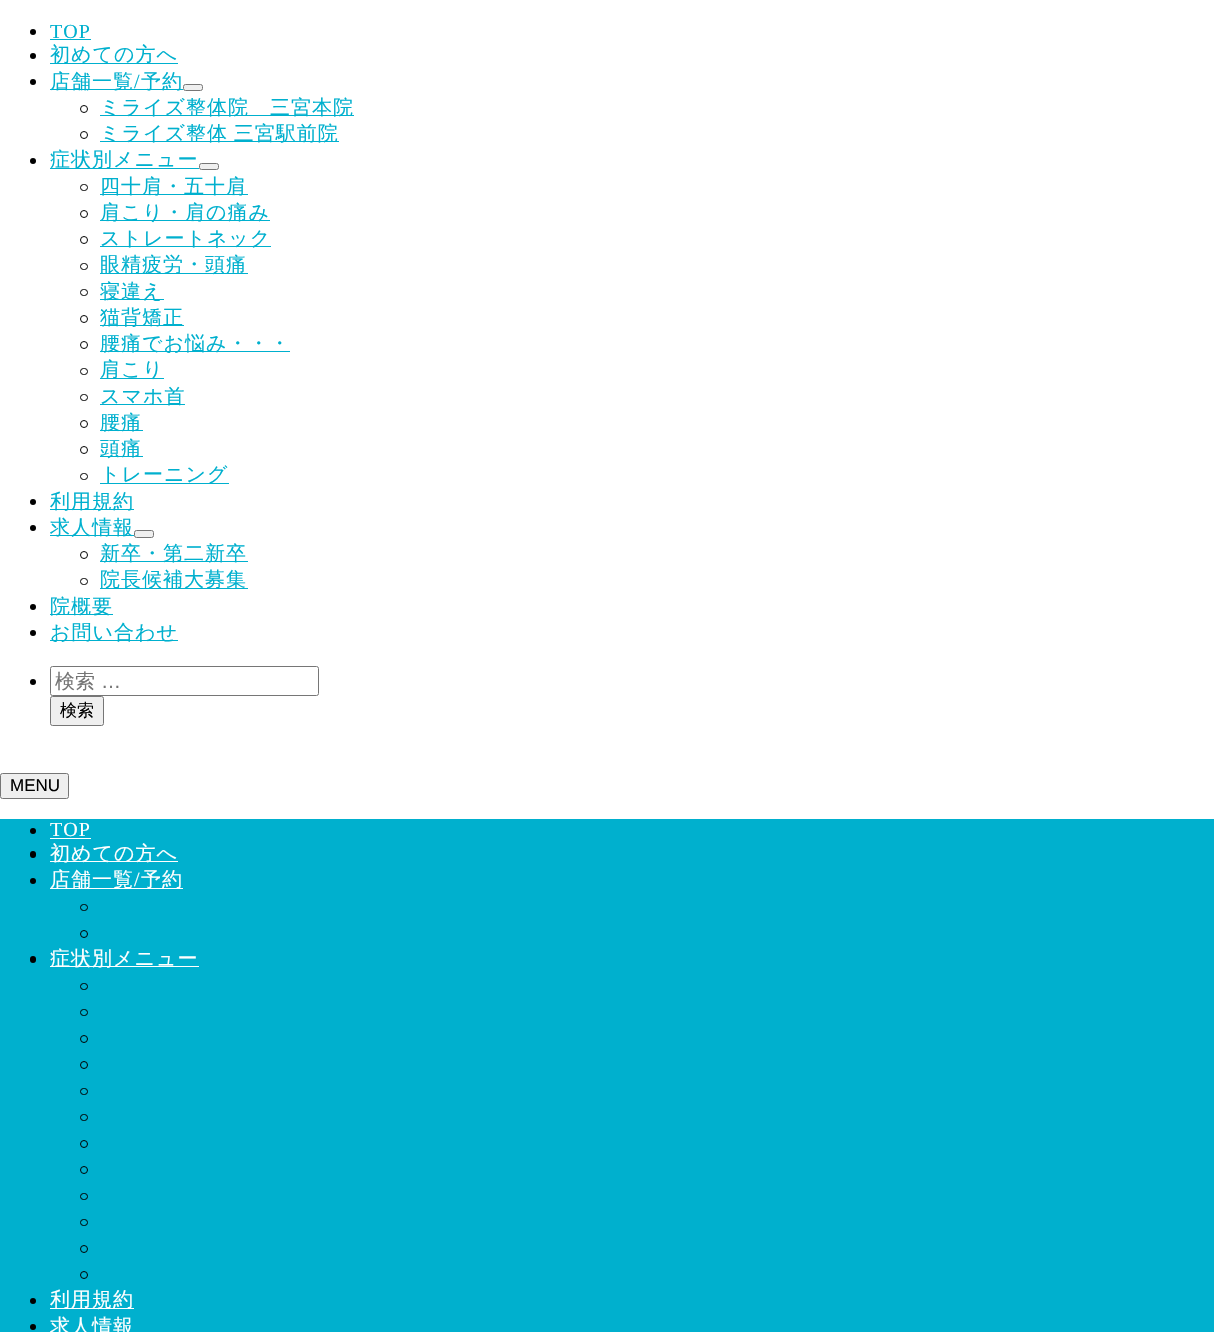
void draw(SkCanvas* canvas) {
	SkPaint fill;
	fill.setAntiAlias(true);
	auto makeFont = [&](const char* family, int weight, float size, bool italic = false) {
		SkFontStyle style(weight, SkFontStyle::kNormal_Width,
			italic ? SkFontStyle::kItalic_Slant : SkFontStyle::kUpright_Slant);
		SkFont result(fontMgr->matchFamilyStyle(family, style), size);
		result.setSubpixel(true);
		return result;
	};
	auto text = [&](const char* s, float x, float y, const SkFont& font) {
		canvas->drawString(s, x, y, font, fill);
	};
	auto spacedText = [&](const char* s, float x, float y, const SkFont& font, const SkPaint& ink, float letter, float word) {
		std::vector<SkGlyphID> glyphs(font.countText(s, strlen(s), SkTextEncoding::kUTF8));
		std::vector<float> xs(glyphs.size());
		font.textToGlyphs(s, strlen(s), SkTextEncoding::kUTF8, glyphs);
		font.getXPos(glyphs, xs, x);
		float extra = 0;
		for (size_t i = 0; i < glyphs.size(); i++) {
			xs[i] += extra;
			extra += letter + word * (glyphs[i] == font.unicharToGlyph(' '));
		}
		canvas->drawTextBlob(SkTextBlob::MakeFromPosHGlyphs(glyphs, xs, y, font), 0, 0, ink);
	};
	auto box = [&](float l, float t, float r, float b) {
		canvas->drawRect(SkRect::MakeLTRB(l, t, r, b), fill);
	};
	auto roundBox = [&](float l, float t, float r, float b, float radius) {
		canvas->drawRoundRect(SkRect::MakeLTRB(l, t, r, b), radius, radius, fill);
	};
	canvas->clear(0xFFFFFFFF);
	fill.setColor(0xFF000000);
	canvas->drawCircle(33, 32, 3, fill);
	fill.setColor(0xFF00B0CE);
	box(50, 39, 91, 40);
	fill.setColor(0xFF000000);
	canvas->drawCircle(33, 56, 3, fill);
	fill.setColor(0xFF00B0CE);
	box(50, 63, 178, 64);
	fill.setColor(0xFF000000);
	canvas->drawCircle(33, 82, 3, fill);
	fill.setColor(0xFF00B0CE);
	box(50, 89, 183, 90);
	fill.setColor(0xFFEFEFEF);
	canvas->drawRoundRect(SkRect::MakeLTRB(183.5f, 84.5f, 202.5f, 90.5f), 2, 2, fill);
	fill.setStyle(SkPaint::kStroke_Style);
	fill.setStrokeWidth(1);
	fill.setColor(0xFF767676);
	canvas->drawRoundRect(SkRect::MakeLTRB(183.5f, 84.5f, 202.5f, 90.5f), 2, 2, fill);
	fill.setColor(0xFF000000);
	canvas->drawCircle(84, 109, 3.5f, fill);
	fill.setStyle(SkPaint::kFill_Style);
	fill.setColor(0xFF00B0CE);
	box(100, 115, 354, 116);
	fill.setStyle(SkPaint::kStroke_Style);
	fill.setColor(0xFF000000);
	canvas->drawCircle(84, 135, 3.5f, fill);
	fill.setStyle(SkPaint::kFill_Style);
	fill.setColor(0xFF00B0CE);
	box(100, 141, 339, 142);
	fill.setColor(0xFF000000);
	canvas->drawCircle(33, 161, 3, fill);
	fill.setColor(0xFF00B0CE);
	box(50, 168, 199, 169);
	fill.setColor(0xFFEFEFEF);
	canvas->drawRoundRect(SkRect::MakeLTRB(199.5f, 163.5f, 218.5f, 169.5f), 2, 2, fill);
	fill.setStyle(SkPaint::kStroke_Style);
	fill.setColor(0xFF767676);
	canvas->drawRoundRect(SkRect::MakeLTRB(199.5f, 163.5f, 218.5f, 169.5f), 2, 2, fill);
	fill.setColor(0xFF000000);
	canvas->drawRoundRect(SkRect::MakeLTRB(80.5f, 184.5f, 87.5f, 190.5f), 3, 3, fill);
	fill.setStyle(SkPaint::kFill_Style);
	fill.setColor(0xFF00B0CE);
	box(100, 194, 248, 195);
	fill.setStyle(SkPaint::kStroke_Style);
	fill.setColor(0xFF000000);
	canvas->drawCircle(84, 214, 3.5f, fill);
	fill.setStyle(SkPaint::kFill_Style);
	fill.setColor(0xFF00B0CE);
	box(100, 220, 270, 221);
	fill.setStyle(SkPaint::kStroke_Style);
	fill.setColor(0xFF000000);
	canvas->drawCircle(84, 240, 3.5f, fill);
	fill.setStyle(SkPaint::kFill_Style);
	fill.setColor(0xFF00B0CE);
	box(100, 246, 271, 247);
	fill.setStyle(SkPaint::kStroke_Style);
	fill.setColor(0xFF000000);
	canvas->drawRoundRect(SkRect::MakeLTRB(80.5f, 263.5f, 87.5f, 269.5f), 3, 3, fill);
	fill.setStyle(SkPaint::kFill_Style);
	fill.setColor(0xFF00B0CE);
	box(100, 273, 248, 274);
	fill.setStyle(SkPaint::kStroke_Style);
	fill.setColor(0xFF000000);
	canvas->drawRoundRect(SkRect::MakeLTRB(80.5f, 289.5f, 87.5f, 295.5f), 3, 3, fill);
	fill.setStyle(SkPaint::kFill_Style);
	fill.setColor(0xFF00B0CE);
	box(100, 299, 164, 300);
	fill.setStyle(SkPaint::kStroke_Style);
	fill.setColor(0xFF000000);
	canvas->drawCircle(84, 319, 3.5f, fill);
	fill.setStyle(SkPaint::kFill_Style);
	fill.setColor(0xFF00B0CE);
	box(100, 325, 184, 326);
	fill.setStyle(SkPaint::kStroke_Style);
	fill.setColor(0xFF000000);
	canvas->drawCircle(84, 345, 3.5f, fill);
	fill.setStyle(SkPaint::kFill_Style);
	fill.setColor(0xFF00B0CE);
	box(100, 351, 290, 352);
	fill.setStyle(SkPaint::kStroke_Style);
	fill.setColor(0xFF000000);
	canvas->drawRoundRect(SkRect::MakeLTRB(80.5f, 368.5f, 87.5f, 374.5f), 3, 3, fill);
	fill.setStyle(SkPaint::kFill_Style);
	fill.setColor(0xFF00B0CE);
	box(100, 378, 164, 379);
	fill.setStyle(SkPaint::kStroke_Style);
	fill.setColor(0xFF000000);
	canvas->drawRoundRect(SkRect::MakeLTRB(80.5f, 394.5f, 87.5f, 400.5f), 3, 3, fill);
	fill.setStyle(SkPaint::kFill_Style);
	fill.setColor(0xFF00B0CE);
	box(100, 404, 185, 405);
	fill.setStyle(SkPaint::kStroke_Style);
	fill.setColor(0xFF000000);
	canvas->drawCircle(84, 424, 3.5f, fill);
	fill.setStyle(SkPaint::kFill_Style);
	fill.setColor(0xFF00B0CE);
	box(100, 430, 143, 431);
	fill.setStyle(SkPaint::kStroke_Style);
	fill.setColor(0xFF000000);
	canvas->drawCircle(84, 450, 3.5f, fill);
	fill.setStyle(SkPaint::kFill_Style);
	fill.setColor(0xFF00B0CE);
	box(100, 456, 143, 457);
	fill.setStyle(SkPaint::kStroke_Style);
	fill.setColor(0xFF000000);
	canvas->drawRoundRect(SkRect::MakeLTRB(80.5f, 473.5f, 87.5f, 479.5f), 3, 3, fill);
	fill.setStyle(SkPaint::kFill_Style);
	fill.setColor(0xFF00B0CE);
	box(100, 483, 229, 484);
	fill.setColor(0xFF000000);
	canvas->drawCircle(33, 502, 3, fill);
	fill.setColor(0xFF00B0CE);
	box(50, 509, 134, 510);
	fill.setColor(0xFF000000);
	canvas->drawCircle(33, 528, 3, fill);
	fill.setColor(0xFF00B0CE);
	box(50, 535, 134, 536);
	fill.setColor(0xFFEFEFEF);
	canvas->drawRoundRect(SkRect::MakeLTRB(134.5f, 530.5f, 153.5f, 537.5f), 2, 2, fill);
	fill.setStyle(SkPaint::kStroke_Style);
	fill.setColor(0xFF767676);
	canvas->drawRoundRect(SkRect::MakeLTRB(134.5f, 530.5f, 153.5f, 537.5f), 2, 2, fill);
	fill.setColor(0xFF000000);
	canvas->drawCircle(84, 555, 3.5f, fill);
	fill.setStyle(SkPaint::kFill_Style);
	fill.setColor(0xFF00B0CE);
	box(100, 561, 248, 562);
	fill.setStyle(SkPaint::kStroke_Style);
	fill.setColor(0xFF000000);
	canvas->drawRoundRect(SkRect::MakeLTRB(80.5f, 578.5f, 87.5f, 584.5f), 3, 3, fill);
	fill.setStyle(SkPaint::kFill_Style);
	fill.setColor(0xFF00B0CE);
	box(100, 588, 248, 589);
	fill.setColor(0xFF000000);
	canvas->drawCircle(33, 607, 3, fill);
	fill.setColor(0xFF00B0CE);
	box(50, 614, 113, 615);
	fill.setColor(0xFF000000);
	canvas->drawCircle(33, 633, 3, fill);
	fill.setColor(0xFF00B0CE);
	box(50, 640, 178, 641);
	fill.setColor(0xFF000000);
	canvas->drawCircle(33, 682, 3, fill);
	fill.setStyle(SkPaint::kStroke_Style);
	fill.setColor(0xFF767676);
	canvas->drawRoundRect(SkRect::MakeLTRB(50.5f, 666.5f, 318.5f, 695.5f), 2, 2, fill);
	fill.setStyle(SkPaint::kFill_Style);
	fill.setColor(0xFFEFEFEF);
	canvas->drawRoundRect(SkRect::MakeLTRB(50.5f, 696.5f, 103.5f, 725.5f), 2, 2, fill);
	fill.setStyle(SkPaint::kStroke_Style);
	fill.setColor(0xFF767676);
	canvas->drawRoundRect(SkRect::MakeLTRB(50.5f, 696.5f, 103.5f, 725.5f), 2, 2, fill);
	fill.setStyle(SkPaint::kFill_Style);
	fill.setColor(0xFFEFEFEF);
	canvas->drawRoundRect(SkRect::MakeLTRB(0.5f, 773.5f, 68.5f, 798.5f), 2, 2, fill);
	fill.setStyle(SkPaint::kStroke_Style);
	fill.setColor(0xFF767676);
	canvas->drawRoundRect(SkRect::MakeLTRB(0.5f, 773.5f, 68.5f, 798.5f), 2, 2, fill);
	fill.setStyle(SkPaint::kFill_Style);
	fill.setColor(0xFF00B0CE);
	box(0, 819, 1214, 1332);
	fill.setColor(0xFF000000);
	canvas->drawCircle(33, 831, 3, fill);
	fill.setColor(0xFFFFFFFF);
	box(50, 838, 91, 839);
	fill.setColor(0xFF000000);
	roundBox(30, 851, 36, 858, 3);
	fill.setColor(0xFFFFFFFF);
	box(50, 861, 178, 862);
	fill.setColor(0xFF000000);
	canvas->drawCircle(33, 881, 3, fill);
	fill.setColor(0xFFFFFFFF);
	box(50, 888, 183, 889);
	fill.setStyle(SkPaint::kStroke_Style);
	fill.setColor(0xFF000000);
	canvas->drawRoundRect(SkRect::MakeLTRB(80.5f, 904.5f, 87.5f, 910.5f), 3, 3, fill);
	canvas->drawCircle(84, 934, 3.5f, fill);
	fill.setStyle(SkPaint::kFill_Style);
	roundBox(30, 956, 36, 963, 3);
	fill.setColor(0xFFFFFFFF);
	box(50, 966, 199, 967);
	fill.setStyle(SkPaint::kStroke_Style);
	fill.setColor(0xFF000000);
	canvas->drawRoundRect(SkRect::MakeLTRB(80.5f, 983.5f, 87.5f, 989.5f), 3, 3, fill);
	canvas->drawRoundRect(SkRect::MakeLTRB(80.5f, 1009.5f, 87.5f, 1015.5f), 3, 3, fill);
	canvas->drawCircle(84, 1039, 3.5f, fill);
	canvas->drawCircle(84, 1065, 3.5f, fill);
	canvas->drawRoundRect(SkRect::MakeLTRB(80.5f, 1088.5f, 87.5f, 1094.5f), 3, 3, fill);
	canvas->drawRoundRect(SkRect::MakeLTRB(80.5f, 1114.5f, 87.5f, 1120.5f), 3, 3, fill);
	canvas->drawCircle(84, 1144, 3.5f, fill);
	canvas->drawCircle(84, 1170, 3.5f, fill);
	canvas->drawRoundRect(SkRect::MakeLTRB(80.5f, 1193.5f, 87.5f, 1199.5f), 3, 3, fill);
	canvas->drawRoundRect(SkRect::MakeLTRB(80.5f, 1219.5f, 87.5f, 1225.5f), 3, 3, fill);
	canvas->drawCircle(84, 1249, 3.5f, fill);
	canvas->drawCircle(84, 1275, 3.5f, fill);
	fill.setStyle(SkPaint::kFill_Style);
	canvas->drawCircle(33, 1301, 3, fill);
	fill.setColor(0xFFFFFFFF);
	box(50, 1308, 134, 1309);
	fill.setColor(0xFF000000);
	canvas->drawCircle(33, 1327, 3, fill);
	auto font1 = makeFont("Liberation Serif", 400, 20);
	fill.setColor(0xFF00B0CE);
	spacedText("TOP", 50, 38, font1, fill, 1, 0);
	auto font2 = makeFont("WenQuanYi Zen Hei", 500, 20);
	spacedText("初めての方へ", 50, 61, font2, fill, 1, 0);
	spacedText("店舗一覧", 50, 88, font2, fill, 1, 0);
	spacedText("/", 134, 88, font1, fill, 1, 0);
	spacedText("予約", 141, 88, font2, fill, 1, 0);
	spacedText("ミライズ整体院　三宮本院", 100, 114, font2, fill, 1, 0);
	spacedText("ミライズ整体 三宮駅前院", 100, 140, font2, fill, 1, -1);
	spacedText("症状別メニュー", 50, 166, font2, fill, 1, 0);
	spacedText("四十肩・五十肩", 100, 193, font2, fill, 1, 0);
	spacedText("肩こり・肩の痛み", 100, 219, font2, fill, 1, 0);
	spacedText("ストレートネック", 100, 245, font2, fill, 1, 0);
	spacedText("眼精疲労・頭痛", 100, 271, font2, fill, 1, 0);
	spacedText("寝違え", 100, 298, font2, fill, 1, 0);
	spacedText("猫背矯正", 100, 324, font2, fill, 1, 0);
	spacedText("腰痛でお悩み・・・", 100, 350, font2, fill, 1, 0);
	spacedText("肩こり", 100, 376, font2, fill, 1, 0);
	spacedText("スマホ首", 100, 403, font2, fill, 1, 0);
	spacedText("腰痛", 100, 429, font2, fill, 1, 0);
	spacedText("頭痛", 100, 455, font2, fill, 1, 0);
	spacedText("トレーニング", 100, 481, font2, fill, 1, 0);
	spacedText("利用規約", 50, 508, font2, fill, 1, 0);
	spacedText("求人情報", 50, 534, font2, fill, 1, 0);
	spacedText("新卒・第二新卒", 100, 560, font2, fill, 1, 0);
	spacedText("院長候補大募集", 100, 586, font2, fill, 1, 0);
	spacedText("院概要", 50, 613, font2, fill, 1, 0);
	spacedText("お問い合わせ", 50, 639, font2, fill, 1, 0);
	fill.setColor(0xFF757575);
	text("検索", 55, 688, font2);
	auto font3 = makeFont("Liberation Sans", 400, 20);
	text("…", 101, 688, font3);
	auto font4 = makeFont("WenQuanYi Zen Hei", 500, 17);
	fill.setColor(0xFF000000);
	text("検索", 60, 716, font4);
	auto font5 = makeFont("Liberation Sans", 400, 17);
	text("MENU", 10, 791, font5);
	fill.setColor(0xFFFFFFFF);
	spacedText("TOP", 50, 836, font1, fill, 1, 0);
	spacedText("初めての方へ", 50, 860, font2, fill, 1, 0);
	spacedText("店舗一覧", 50, 886, font2, fill, 1, 0);
	spacedText("/", 134, 886, font1, fill, 1, 0);
	spacedText("予約", 141, 886, font2, fill, 1, 0);
	spacedText("症状別メニュー", 50, 965, font2, fill, 1, 0);
	spacedText("利用規約", 50, 1306, font2, fill, 1, 0);
	spacedText("求人情報", 50, 1333, font2, fill, 1, 0);
}
